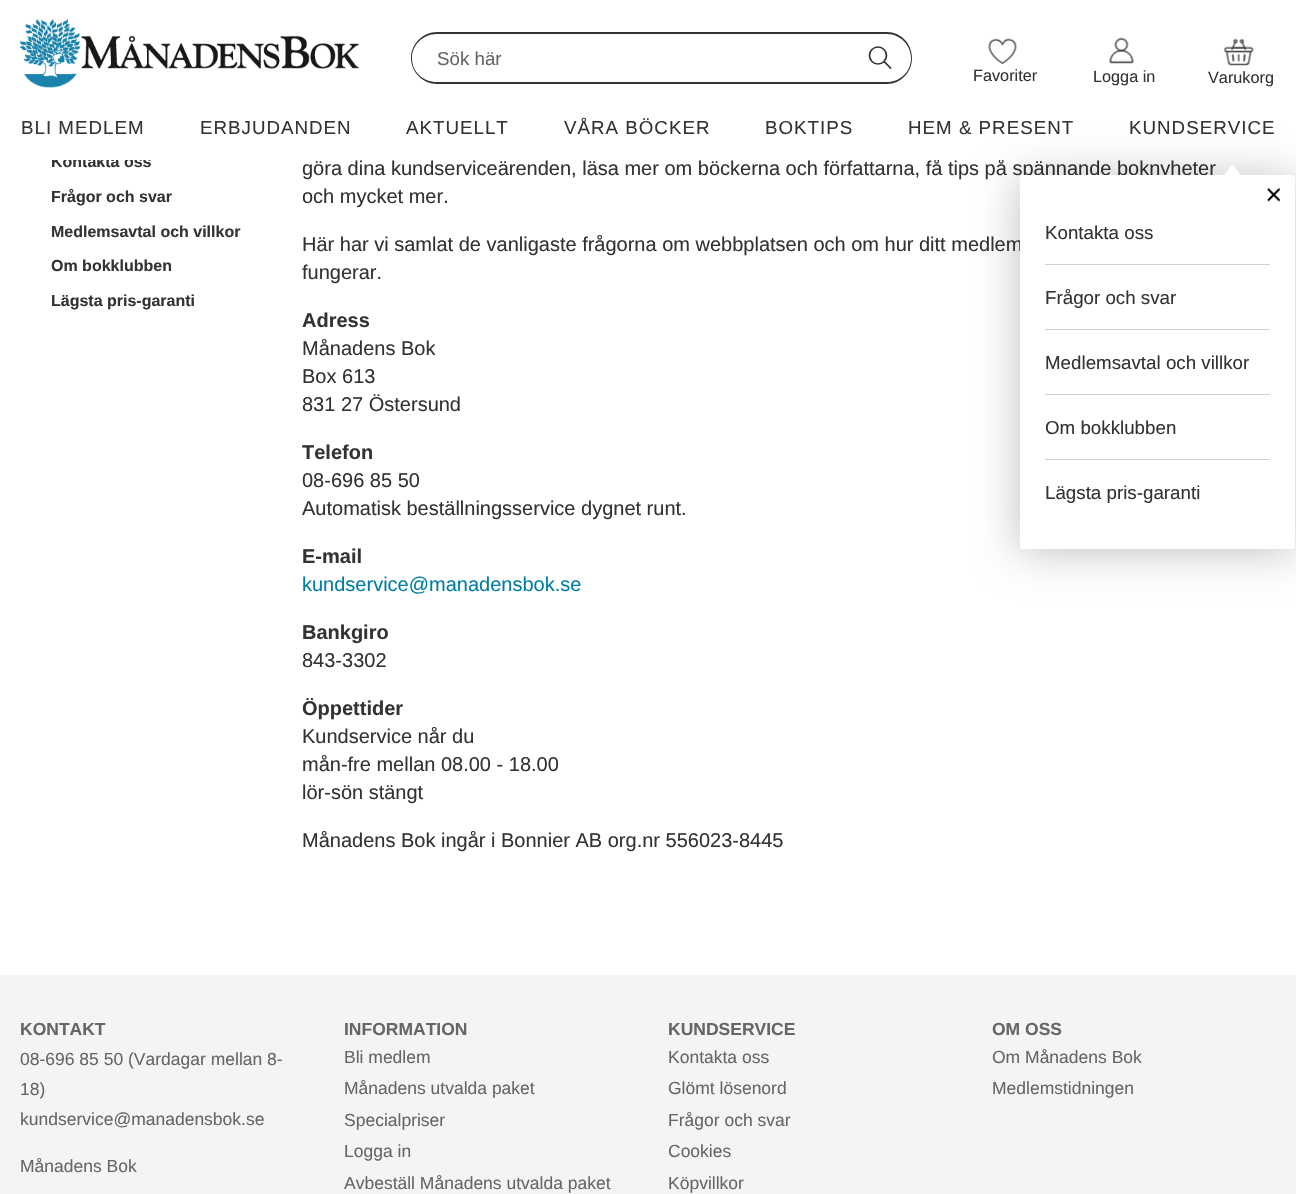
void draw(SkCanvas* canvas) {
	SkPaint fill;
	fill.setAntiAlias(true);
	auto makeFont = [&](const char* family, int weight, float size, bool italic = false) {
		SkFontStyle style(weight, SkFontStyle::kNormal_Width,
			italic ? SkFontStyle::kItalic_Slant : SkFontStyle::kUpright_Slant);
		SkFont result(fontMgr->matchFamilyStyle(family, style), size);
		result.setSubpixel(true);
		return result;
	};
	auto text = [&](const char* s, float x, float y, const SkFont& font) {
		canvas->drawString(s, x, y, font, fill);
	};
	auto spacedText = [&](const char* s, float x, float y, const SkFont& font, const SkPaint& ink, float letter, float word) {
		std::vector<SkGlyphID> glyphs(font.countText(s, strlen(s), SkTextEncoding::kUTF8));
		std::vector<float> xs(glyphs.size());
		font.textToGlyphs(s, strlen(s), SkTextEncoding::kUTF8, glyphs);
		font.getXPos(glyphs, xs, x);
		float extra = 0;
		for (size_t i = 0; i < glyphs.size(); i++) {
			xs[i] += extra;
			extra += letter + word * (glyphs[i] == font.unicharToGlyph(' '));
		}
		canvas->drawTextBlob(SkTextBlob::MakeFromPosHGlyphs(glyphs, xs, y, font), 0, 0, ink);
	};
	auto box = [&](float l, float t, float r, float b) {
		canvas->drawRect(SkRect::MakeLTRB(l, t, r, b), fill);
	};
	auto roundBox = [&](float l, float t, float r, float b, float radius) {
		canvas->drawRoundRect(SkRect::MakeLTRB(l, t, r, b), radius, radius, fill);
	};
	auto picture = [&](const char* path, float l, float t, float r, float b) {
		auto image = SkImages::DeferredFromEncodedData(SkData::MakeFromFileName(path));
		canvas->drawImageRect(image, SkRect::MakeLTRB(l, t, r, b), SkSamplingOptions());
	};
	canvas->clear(0xFFFFFFFF);
	picture("image0.png", 20, 19, 359, 88);
	fill.setColor(0xFF333333);
	canvas->drawPath(SkPathBuilder(SkPathFillType::kEvenOdd).moveTo(437, 32).lineTo(859, 32).lineTo(859, 84).lineTo(437, 84).cubicTo(423, 84, 411, 72, 411, 58).cubicTo(411, 44, 423, 32, 437, 32).close().moveTo(437, 34).lineTo(859, 34).lineTo(859, 82).lineTo(437, 82).cubicTo(423, 82, 412, 72, 412, 58).cubicTo(412, 45, 423, 34, 437, 34).close().detach(), fill);
	canvas->drawPath(SkPathBuilder(SkPathFillType::kEvenOdd).moveTo(859, 32).lineTo(887, 32).cubicTo(901, 32, 912, 44, 912, 58).cubicTo(912, 72, 901, 84, 887, 84).lineTo(859, 84).close().moveTo(859, 34).lineTo(887, 34).cubicTo(900, 34, 911, 45, 911, 58).cubicTo(911, 72, 900, 82, 887, 82).lineTo(859, 82).close().detach(), fill);
	fill.setStyle(SkPaint::kStroke_Style);
	fill.setStrokeWidth(1.7f);
	fill.setStrokeCap(SkPaint::kSquare_Cap);
	canvas->drawPath(SkPathBuilder().moveTo(890.5f, 68).lineTo(875, 52.5f).detach(), fill);
	fill.setStyle(SkPaint::kFill_Style);
	fill.setColor(0xFFFFFFFF);
	canvas->drawCircle(878, 55.5f, 8.5f, fill);
	fill.setStyle(SkPaint::kStroke_Style);
	fill.setStrokeCap(SkPaint::kButt_Cap);
	fill.setColor(0xFF333333);
	canvas->drawCircle(878, 55.5f, 8.5f, fill);
	picture("image1.png", 988, 38, 1017, 64);
	picture("image2.png", 1109, 37, 1134, 64);
	picture("image3.png", 1223, 38, 1254, 66);
	fill.setStyle(SkPaint::kFill_Style);
	fill.setColor(0xFFF4F4F4);
	box(0, 975, 1296, 1194);
	auto font1 = makeFont("Liberation Sans", 400, 18.75f);
	fill.setColor(0xFF666666);
	text("Sök här", 437, 65, font1);
	auto font2 = makeFont("Liberation Sans", 400, 16.25f);
	fill.setColor(0xFF333333);
	text("Favoriter", 973, 81, font2);
	text("Logga in", 1093, 82, font2);
	text("Varukorg", 1208, 83, font2);
	spacedText("BLI MEDLEM", 21, 134, font1, fill, 1, 0);
	spacedText("ERBJUDANDEN", 200, 134, font1, fill, 1, 0);
	spacedText("AKTUELLT", 406, 134, font1, fill, 1, 0);
	spacedText("VÅRA BÖCKER", 564, 134, font1, fill, 1, 0);
	spacedText("BOKTIPS", 765, 134, font1, fill, 1, 0);
	spacedText("HEM & PRESENT", 908, 134, font1, fill, 1, 0);
	spacedText("KUNDSERVICE", 1129, 134, font1, fill, 1, 0);
	auto font3 = makeFont("Liberation Sans", 700, 16);
	text("Kontakta oss", 51, 167, font3);
	text("Frågor och svar", 51, 202, font3);
	text("Medlemsavtal och villkor", 51, 237, font3);
	text("Om bokklubben", 51, 271, font3);
	text("Lägsta pris-garanti", 51, 306, font3);
	auto font4 = makeFont("Liberation Sans", 400, 20);
	text("göra dina kundserviceärenden, läsa mer om böckerna och författarna, få tips på spännande boknyheter", 302, 175, font4);
	fill.setColor(0xFFFFFFFF);
	box(52, 155, 1003, 160);
	fill.setColor(0x40000000);
	fill.setMaskFilter(SkMaskFilter::MakeBlur(kNormal_SkBlurStyle, 22));
	canvas->drawRoundRect(SkRect::MakeLTRB(1020, 178, 1295, 551), 2.5f, 2.5f, fill);
	fill.setMaskFilter(nullptr);
	fill.setColor(0xFFFFFFFF);
	canvas->drawPath(SkPathBuilder().moveTo(1241, 175).lineTo(1224, 175).lineTo(1232.5f, 164).close().detach(), fill);
	fill.setColor(0xFF333333);
	text("och mycket mer.", 302, 203, font4);
	text("Här har vi samlat de vanligaste frågorna om webbplatsen och om hur ditt medlem", 302, 251, font4);
	fill.setColor(0xFFFFFFFF);
	roundBox(1020, 175, 1295, 549, 2.5f);
	picture("image4.png", 1267, 188, 1280, 202);
	fill.setColor(0xFF333333);
	text("Lägsta pris-garanti", 1045, 499, font1);
	text("Om bokklubben", 1045, 434, font1);
	text("Medlemsavtal och villkor", 1045, 369, font1);
	text("Frågor och svar", 1045, 304, font1);
	text("Kontakta oss", 1045, 239, font1);
	fill.setColor(0xFFD1D1CD);
	box(1045, 459, 1270, 460);
	box(1045, 394, 1270, 395);
	box(1045, 329, 1270, 330);
	box(1045, 264, 1270, 265);
	fill.setColor(0xFF333333);
	text("fungerar.", 302, 279, font4);
	auto font5 = makeFont("Liberation Sans", 700, 20);
	text("Adress", 302, 327, font5);
	text("Månadens Bok", 302, 355, font4);
	text("Box 613", 302, 383, font4);
	text("831 27 Östersund", 302, 411, font4);
	text("Telefon", 302, 459, font5);
	text("08-696 85 50", 302, 487, font4);
	text("Automatisk beställningsservice dygnet runt.", 302, 515, font4);
	text("E-mail", 302, 563, font5);
	fill.setColor(0xFF007EA5);
	text("kundservice@manadensbok.se", 302, 591, font4);
	fill.setColor(0xFF333333);
	text("Bankgiro", 302, 639, font5);
	text("843-3302", 302, 667, font4);
	text("Öppettider", 302, 715, font5);
	text("Kundservice når du", 302, 743, font4);
	text("mån-fre mellan 08.00 - 18.00", 302, 771, font4);
	text("lör-sön stängt", 302, 799, font4);
	text("Månadens Bok ingår i Bonnier AB org.nr 556023-8445", 302, 847, font4);
	auto font6 = makeFont("Liberation Sans", 700, 17.5f);
	fill.setColor(0xFF666666);
	text("KONTAKT", 20, 1035, font6);
	auto font7 = makeFont("Liberation Sans", 400, 17.5f);
	text("08-696 85 50 (Vardagar mellan 8-", 20, 1065, font7);
	text("18)", 20, 1095, font7);
	text("kundservice@manadensbok.se", 20, 1125, font7);
	text("Månadens Bok", 20, 1172, font7);
	text("INFORMATION", 344, 1035, font6);
	text("Bli medlem", 344, 1063, font7);
	text("Månadens utvalda paket", 344, 1094, font7);
	text("Specialpriser", 344, 1126, font7);
	text("Logga in", 344, 1157, font7);
	text("Avbeställ Månadens utvalda paket", 344, 1189, font7);
	text("KUNDSERVICE", 668, 1035, font6);
	text("Kontakta oss", 668, 1063, font7);
	text("Glömt lösenord", 668, 1094, font7);
	text("Frågor och svar", 668, 1126, font7);
	text("Cookies", 668, 1157, font7);
	text("Köpvillkor", 668, 1189, font7);
	text("OM OSS", 992, 1035, font6);
	text("Om Månadens Bok", 992, 1063, font7);
	text("Medlemstidningen", 992, 1094, font7);
}
